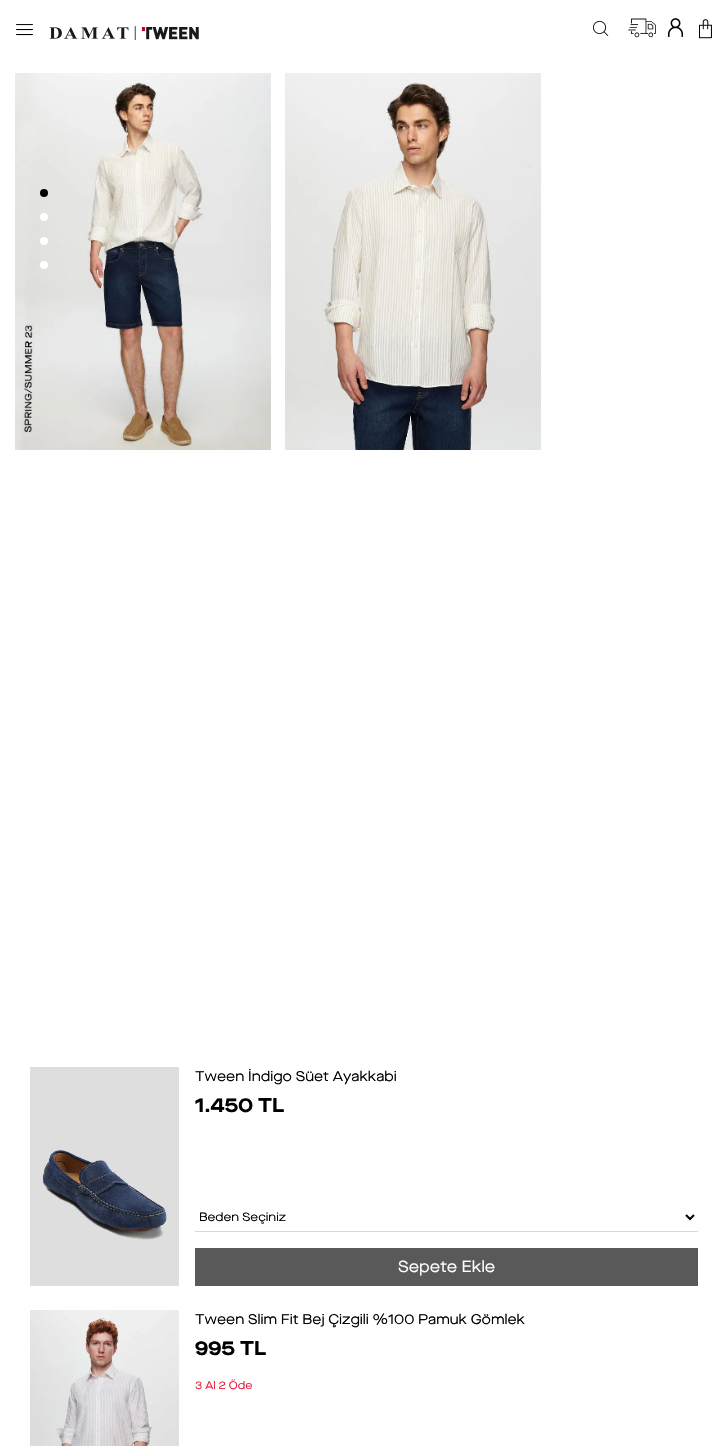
void draw(SkCanvas* canvas) {
	SkPaint fill;
	fill.setAntiAlias(true);
	auto makeFont = [&](const char* family, int weight, float size, bool italic = false) {
		SkFontStyle style(weight, SkFontStyle::kNormal_Width,
			italic ? SkFontStyle::kItalic_Slant : SkFontStyle::kUpright_Slant);
		SkFont result(fontMgr->matchFamilyStyle(family, style), size);
		result.setSubpixel(true);
		return result;
	};
	auto text = [&](const char* s, float x, float y, const SkFont& font) {
		canvas->drawString(s, x, y, font, fill);
	};
	auto box = [&](float l, float t, float r, float b) {
		canvas->drawRect(SkRect::MakeLTRB(l, t, r, b), fill);
	};
	auto picture = [&](const char* path, float l, float t, float r, float b) {
		auto image = SkImages::DeferredFromEncodedData(SkData::MakeFromFileName(path));
		canvas->drawImageRect(image, SkRect::MakeLTRB(l, t, r, b), SkSamplingOptions());
	};
	canvas->clear(0xFFFFFFFF);
	picture("image0.png", 16, 24, 33, 36);
	picture("image1.png", 49, 26, 199, 40);
	picture("image2.png", 593, 20, 609, 36);
	picture("image3.png", 628, 18, 656, 38);
	picture("image4.png", 668, 18, 684, 37);
	picture("image5.png", 699, 19, 712, 39);
	picture("image6.png", 15, 73, 271, 450);
	picture("image7.png", 285, 73, 541, 450);
	fill.setColor(0xFF000000);
	canvas->drawCircle(44, 193, 4, fill);
	fill.setColor(0xFFFFFFFF);
	canvas->drawCircle(44, 217, 4, fill);
	canvas->drawCircle(44, 241, 4, fill);
	canvas->drawCircle(44, 265, 4, fill);
	picture("image8.png", 30, 1067, 179, 1286);
	fill.setColor(0xFFD8D8D8);
	box(195, 1231, 698, 1232);
	fill.setStyle(SkPaint::kStroke_Style);
	fill.setStrokeWidth(2);
	fill.setColor(0xFF000000);
	canvas->drawPath(SkPathBuilder().moveTo(686, 1215).lineTo(690, 1219).lineTo(694, 1215).detach(), fill);
	fill.setStyle(SkPaint::kFill_Style);
	fill.setColor(0xFF595959);
	box(195, 1248, 698, 1286);
	picture("image9.png", 30, 1310, 179, 1446);
	auto font1 = makeFont("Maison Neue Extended", 400, 14);
	fill.setColor(0xFF000000);
	text("Tween İndigo Süet Ayakkabi", 195, 1081, font1);
	auto font2 = makeFont("Maison Neue Extended", 700, 20);
	text("1.450 TL", 195, 1112, font2);
	auto font3 = makeFont("Maison Neue Extended", 400, 12);
	text("Beden Seçiniz", 199, 1221, font3);
	auto font4 = makeFont("Maison Neue Extended", 400, 16);
	fill.setColor(0xFFFFFFFF);
	text("Sepete Ekle", 398, 1272, font4);
	fill.setColor(0xFF000000);
	text("Tween Slim Fit Bej Çizgili %100 Pamuk Gömlek", 195, 1324, font1);
	text("995 TL", 195, 1355, font2);
	auto font5 = makeFont("Maison Neue Extended", 400, 11);
	fill.setColor(0xFFE51937);
	text("3 Al 2 Öde", 195, 1389, font5);
}
